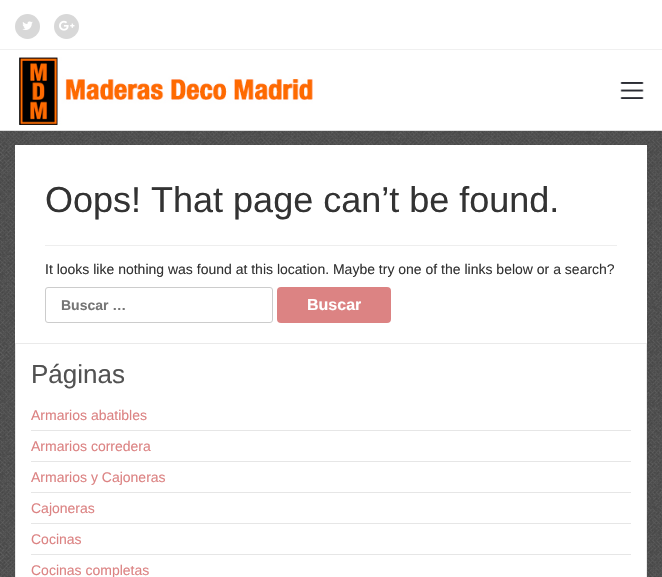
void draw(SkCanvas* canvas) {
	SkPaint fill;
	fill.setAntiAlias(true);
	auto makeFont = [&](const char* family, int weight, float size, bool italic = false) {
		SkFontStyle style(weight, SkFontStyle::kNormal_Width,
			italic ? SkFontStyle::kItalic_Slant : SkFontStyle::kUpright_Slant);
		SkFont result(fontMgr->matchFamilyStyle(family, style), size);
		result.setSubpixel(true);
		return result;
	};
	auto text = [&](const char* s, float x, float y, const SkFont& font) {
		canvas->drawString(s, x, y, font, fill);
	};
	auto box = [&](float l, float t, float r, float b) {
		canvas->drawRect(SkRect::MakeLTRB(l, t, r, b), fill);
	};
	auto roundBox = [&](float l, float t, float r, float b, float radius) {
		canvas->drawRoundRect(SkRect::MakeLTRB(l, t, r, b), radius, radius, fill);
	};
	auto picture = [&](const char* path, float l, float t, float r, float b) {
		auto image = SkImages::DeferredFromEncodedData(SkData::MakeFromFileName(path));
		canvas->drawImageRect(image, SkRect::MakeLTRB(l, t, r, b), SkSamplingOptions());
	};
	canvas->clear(0xFFFFFFFF);
	picture("image0.png", 0, 131, 662, 577);
	fill.setColor(0xFFF0F0F0);
	box(0, 49, 662, 50);
	fill.setColor(0xFFD8D8D8);
	canvas->drawCircle(27.5f, 26.5f, 12.5f, fill);
	picture("image1.png", 22, 21, 33, 30);
	canvas->drawCircle(66.5f, 26.5f, 12.5f, fill);
	picture("image2.png", 59, 20, 75, 31);
	fill.setColor(0xFFDDDDDD);
	box(0, 130, 662, 131);
	picture("image3.png", 19, 57, 313, 125);
	picture("image4.png", 620, 82, 644, 99);
	fill.setColor(0xFFFFFFFF);
	box(15, 145, 647, 343);
	fill.setColor(0xFFEEEEEE);
	box(45, 245, 617, 246);
	fill.setStyle(SkPaint::kStroke_Style);
	fill.setStrokeWidth(1);
	fill.setColor(0xFFCCCCCC);
	canvas->drawRoundRect(SkRect::MakeLTRB(45.5f, 287.5f, 272.5f, 322.5f), 2.5f, 2.5f, fill);
	fill.setStyle(SkPaint::kFill_Style);
	fill.setColor(0xFFDC8383);
	roundBox(277, 287, 391, 323, 4);
	fill.setColor(0xFFFFFFFF);
	canvas->drawRect(SkRect::MakeLTRB(15.5f, 343.5f, 646.5f, 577.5f), fill);
	fill.setStyle(SkPaint::kStroke_Style);
	fill.setColor(0xFFEAEAEA);
	canvas->drawRect(SkRect::MakeLTRB(15.5f, 343.5f, 646.5f, 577.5f), fill);
	fill.setStyle(SkPaint::kFill_Style);
	fill.setColor(0xFFE6E6E6);
	box(31, 430, 631, 431);
	box(31, 461, 631, 462);
	box(31, 492, 631, 493);
	box(31, 523, 631, 524);
	box(31, 554, 631, 555);
	auto font1 = makeFont("Liberation Sans", 400, 36);
	fill.setColor(0xFF333333);
	text("Oops! That page can’t be found.", 45, 212, font1);
	auto font2 = makeFont("Liberation Sans", 400, 14);
	text("It looks like nothing was found at this location. Maybe try one of the links below or a search?", 45, 274, font2);
	auto font3 = makeFont("Liberation Sans", 700, 14);
	fill.setColor(0xFF757575);
	text("Buscar …", 61, 310, font3);
	auto font4 = makeFont("Liberation Sans", 700, 16);
	fill.setColor(0xFFFFFFFF);
	text("Buscar", 307, 310, font4);
	auto font5 = makeFont("Liberation Sans", 400, 26);
	fill.setColor(0xFF525252);
	text("Páginas", 31, 383, font5);
	fill.setColor(0xFFDC8383);
	text("Armarios abatibles", 31, 420, font2);
	text("Armarios corredera", 31, 451, font2);
	text("Armarios y Cajoneras", 31, 482, font2);
	text("Cajoneras", 31, 513, font2);
	text("Cocinas", 31, 544, font2);
	text("Cocinas completas", 31, 575, font2);
}
